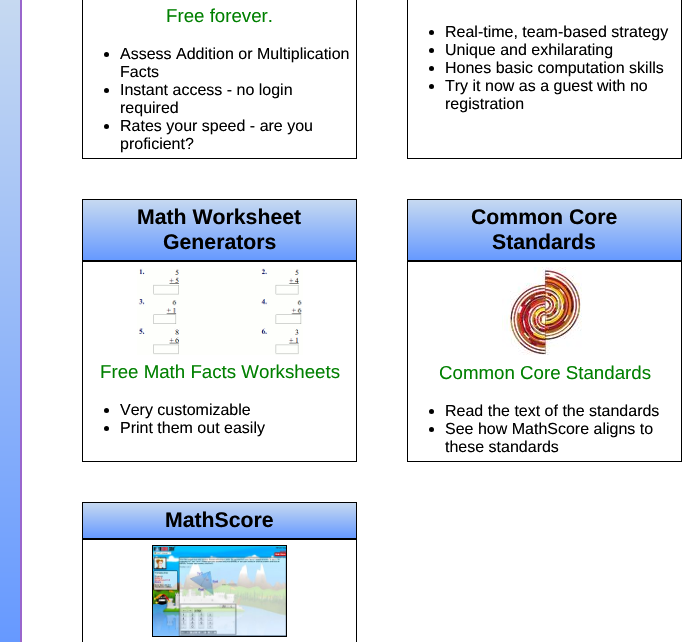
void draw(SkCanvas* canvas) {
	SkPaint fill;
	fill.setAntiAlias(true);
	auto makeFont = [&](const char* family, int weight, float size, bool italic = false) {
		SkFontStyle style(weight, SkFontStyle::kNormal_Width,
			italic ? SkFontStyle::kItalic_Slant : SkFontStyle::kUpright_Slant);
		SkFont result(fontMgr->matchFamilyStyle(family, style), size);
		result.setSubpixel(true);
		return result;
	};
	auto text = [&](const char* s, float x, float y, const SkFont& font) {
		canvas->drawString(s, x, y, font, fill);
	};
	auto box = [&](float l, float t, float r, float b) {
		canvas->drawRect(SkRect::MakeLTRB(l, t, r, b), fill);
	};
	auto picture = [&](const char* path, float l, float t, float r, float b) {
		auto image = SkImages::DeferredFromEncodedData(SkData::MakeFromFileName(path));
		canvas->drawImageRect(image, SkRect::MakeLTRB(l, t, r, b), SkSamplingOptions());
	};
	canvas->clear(0xFFFFFFFF);
	{
		const SkColor colors[] = {0xFFC6D9F1, 0xFF6699FF};
		const float stops[] = {0, 1};
		const SkPoint ends[] = {{0, 0}, {0, 642}};
		fill.setShader(SkGradientShader::MakeLinear(ends, colors, stops, 2, SkTileMode::kClamp));
		fill.setAlpha(255);
	}
	box(0, 0, 20, 642);
	fill.setStyle(SkPaint::kStroke_Style);
	fill.setStrokeWidth(2);
	fill.setShader(nullptr);
	fill.setColor(0xFF9966CC);
	canvas->drawRect(SkRect::MakeLTRB(21, -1, 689, 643), fill);
	fill.setStrokeWidth(1);
	fill.setColor(0xFF000000);
	canvas->drawRect(SkRect::MakeLTRB(82.5f, -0.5f, 356.5f, 158.5f), fill);
	fill.setStyle(SkPaint::kFill_Style);
	canvas->drawCircle(106.5f, 54.5f, 2.5f, fill);
	canvas->drawCircle(106.5f, 90.5f, 2.5f, fill);
	canvas->drawCircle(106.5f, 126.5f, 2.5f, fill);
	fill.setStyle(SkPaint::kStroke_Style);
	canvas->drawRect(SkRect::MakeLTRB(407.5f, -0.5f, 681.5f, 158.5f), fill);
	fill.setStyle(SkPaint::kFill_Style);
	canvas->drawCircle(431.5f, 32.5f, 2.5f, fill);
	canvas->drawCircle(431.5f, 50.5f, 2.5f, fill);
	canvas->drawCircle(431.5f, 68.5f, 2.5f, fill);
	canvas->drawCircle(431.5f, 86.5f, 2.5f, fill);
	{
		const SkColor colors[] = {0xFFC6D9F1, 0xFF6699FF};
		const float stops[] = {0, 1};
		const SkPoint ends[] = {{83, 200}, {83, 260}};
		fill.setShader(SkGradientShader::MakeLinear(ends, colors, stops, 2, SkTileMode::kClamp));
		fill.setAlpha(255);
	}
	box(83, 200, 356, 260);
	fill.setStyle(SkPaint::kStroke_Style);
	fill.setShader(nullptr);
	fill.setColor(0xFF000000);
	canvas->drawRect(SkRect::MakeLTRB(82.5f, 199.5f, 356.5f, 260.5f), fill);
	fill.setStyle(SkPaint::kFill_Style);
	{
		const SkColor colors[] = {0xFFC6D9F1, 0xFF6699FF};
		const float stops[] = {0, 1};
		const SkPoint ends[] = {{408, 200}, {408, 260}};
		fill.setShader(SkGradientShader::MakeLinear(ends, colors, stops, 2, SkTileMode::kClamp));
		fill.setAlpha(255);
	}
	box(408, 200, 681, 260);
	fill.setStyle(SkPaint::kStroke_Style);
	fill.setShader(nullptr);
	fill.setColor(0xFF000000);
	canvas->drawRect(SkRect::MakeLTRB(407.5f, 199.5f, 681.5f, 260.5f), fill);
	canvas->drawRect(SkRect::MakeLTRB(82.5f, 261.5f, 356.5f, 461.5f), fill);
	picture("image0.png", 137, 268, 303, 355);
	fill.setStyle(SkPaint::kFill_Style);
	canvas->drawCircle(106.5f, 410.5f, 2.5f, fill);
	canvas->drawCircle(106.5f, 428.5f, 2.5f, fill);
	fill.setStyle(SkPaint::kStroke_Style);
	canvas->drawRect(SkRect::MakeLTRB(407.5f, 261.5f, 681.5f, 461.5f), fill);
	picture("image1.png", 502, 267, 582, 355);
	fill.setStyle(SkPaint::kFill_Style);
	canvas->drawCircle(431.5f, 411.5f, 2.5f, fill);
	canvas->drawCircle(431.5f, 429.5f, 2.5f, fill);
	{
		const SkColor colors[] = {0xFFC6D9F1, 0xFF6699FF};
		const float stops[] = {0, 1};
		const SkPoint ends[] = {{83, 503}, {83, 538}};
		fill.setShader(SkGradientShader::MakeLinear(ends, colors, stops, 2, SkTileMode::kClamp));
		fill.setAlpha(255);
	}
	box(83, 503, 356, 538);
	fill.setStyle(SkPaint::kStroke_Style);
	fill.setShader(nullptr);
	fill.setColor(0xFF000000);
	canvas->drawRect(SkRect::MakeLTRB(82.5f, 502.5f, 356.5f, 538.5f), fill);
	canvas->drawRect(SkRect::MakeLTRB(82.5f, 539.5f, 356.5f, 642.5f), fill);
	canvas->drawRect(SkRect::MakeLTRB(152.5f, 545.5f, 286.5f, 636.5f), fill);
	picture("image2.png", 153, 546, 286, 636);
	auto font1 = makeFont("Liberation Sans", 400, 18.7f);
	fill.setStyle(SkPaint::kFill_Style);
	fill.setColor(0xFF008000);
	text("Free forever.", 166, 22, font1);
	auto font2 = makeFont("Liberation Sans", 400, 16);
	fill.setColor(0xFF000000);
	text("Assess Addition or Multiplication", 120, 59, font2);
	text("Facts", 120, 77, font2);
	text("Instant access - no login", 120, 95, font2);
	text("required", 120, 113, font2);
	text("Rates your speed - are you", 120, 131, font2);
	text("proficient?", 120, 149, font2);
	text("Real-time, team-based strategy", 445, 37, font2);
	text("Unique and exhilarating", 445, 55, font2);
	text("Hones basic computation skills", 445, 73, font2);
	text("Try it now as a guest with no", 445, 91, font2);
	text("registration", 445, 109, font2);
	auto font3 = makeFont("Liberation Sans", 700, 21.25f);
	text("Math Worksheet", 137, 224, font3);
	text("Generators", 163, 249, font3);
	text("Common Core", 471, 224, font3);
	text("Standards", 492, 249, font3);
	fill.setColor(0xFF008000);
	text("Free Math Facts Worksheets", 100, 378, font1);
	fill.setColor(0xFF000000);
	text("Very customizable", 120, 415, font2);
	text("Print them out easily", 120, 433, font2);
	fill.setColor(0xFF008000);
	text("Common Core Standards", 439, 379, font1);
	fill.setColor(0xFF000000);
	text("Read the text of the standards", 445, 416, font2);
	text("See how MathScore aligns to", 445, 434, font2);
	text("these standards", 445, 452, font2);
	text("MathScore", 165, 527, font3);
}
